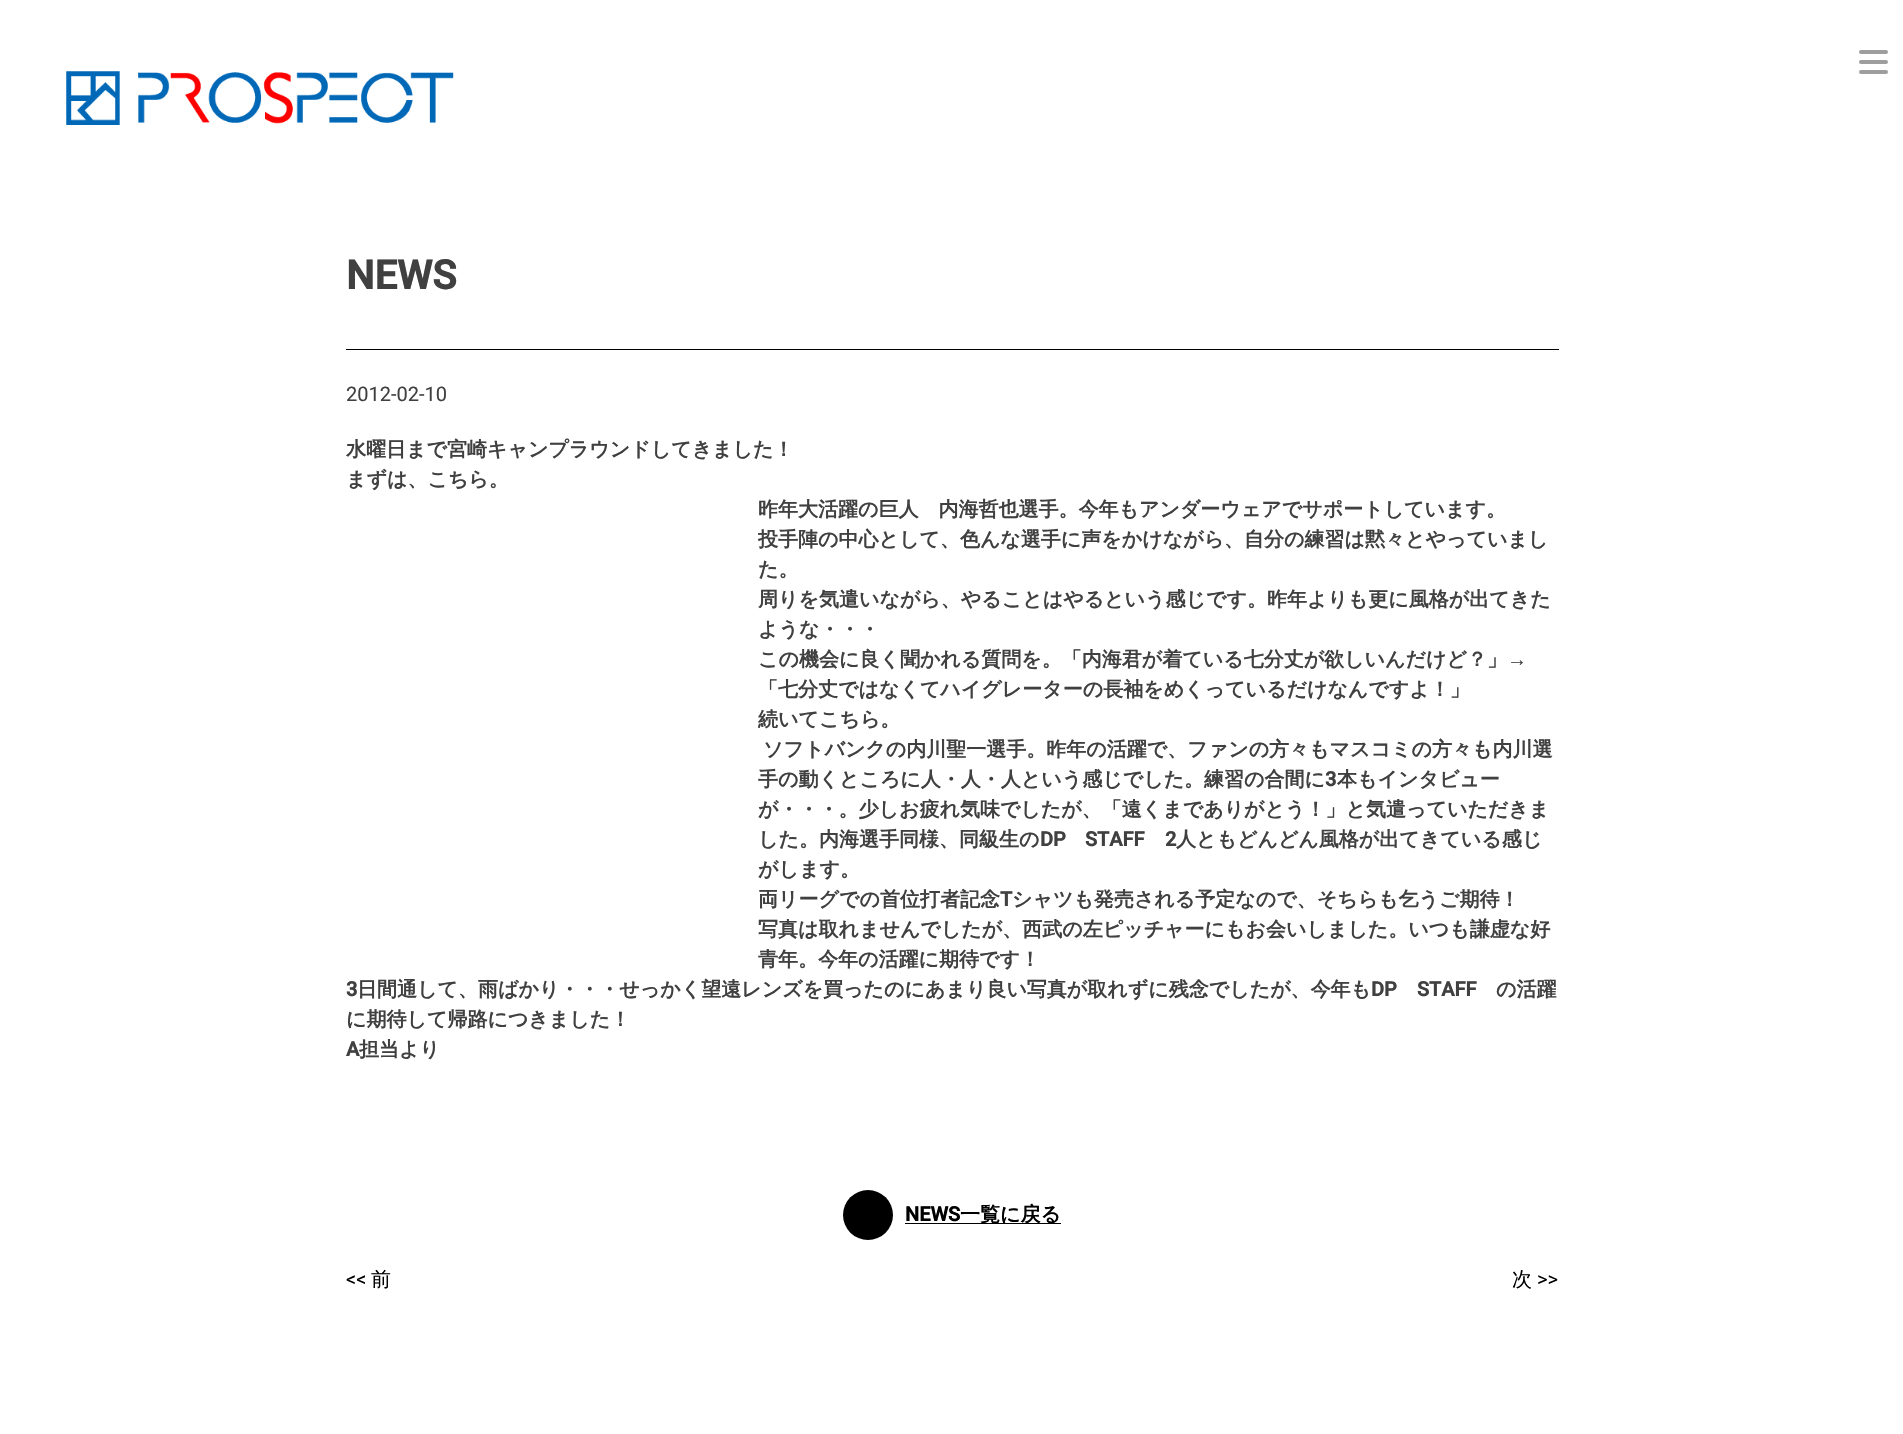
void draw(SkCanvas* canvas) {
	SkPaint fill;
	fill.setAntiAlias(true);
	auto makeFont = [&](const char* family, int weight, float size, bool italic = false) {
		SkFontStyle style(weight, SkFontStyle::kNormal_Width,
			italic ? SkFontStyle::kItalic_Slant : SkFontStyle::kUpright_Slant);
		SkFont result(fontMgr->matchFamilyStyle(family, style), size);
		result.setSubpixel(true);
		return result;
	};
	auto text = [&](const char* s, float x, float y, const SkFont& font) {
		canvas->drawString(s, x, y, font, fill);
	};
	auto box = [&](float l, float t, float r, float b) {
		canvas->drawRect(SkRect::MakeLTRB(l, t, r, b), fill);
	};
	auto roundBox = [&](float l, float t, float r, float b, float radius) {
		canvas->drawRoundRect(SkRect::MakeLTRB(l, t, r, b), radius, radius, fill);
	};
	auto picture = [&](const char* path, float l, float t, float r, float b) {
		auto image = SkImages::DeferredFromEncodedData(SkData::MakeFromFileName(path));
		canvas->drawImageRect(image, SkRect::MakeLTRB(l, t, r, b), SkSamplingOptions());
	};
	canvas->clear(0xFFFFFFFF);
	fill.setColor(0xFF9E9E9E);
	roundBox(1859, 50, 1888, 54, 2);
	roundBox(1859, 60, 1888, 64, 2);
	roundBox(1859, 70, 1888, 74, 2);
	picture("image0.png", 66, 71, 454, 125);
	fill.setColor(0xFF000000);
	box(346, 349, 1559, 350);
	canvas->drawCircle(868, 1215, 25, fill);
	box(905, 1223, 1061, 1224);
	auto font1 = makeFont("Roboto", 700, 40);
	fill.setColor(0xFF404040);
	text("NEWS", 346, 289, font1);
	auto font2 = makeFont("Roboto", 400, 20);
	text("2012-02-10", 346, 401, font2);
	auto font3 = makeFont("WenQuanYi Zen Hei", 700, 20);
	text("水曜日まで宮崎キャンプラウンドしてきました！", 346, 456, font3);
	text("まずは、こちら。", 346, 486, font3);
	text("昨年大活躍の巨人　内海哲也選手。今年もアンダーウェアでサポートしています。", 758, 516, font3);
	text("投手陣の中心として、色んな選手に声をかけながら、自分の練習は黙々とやっていまし", 758, 546, font3);
	text("た。", 758, 576, font3);
	text("周りを気遣いながら、やることはやるという感じです。昨年よりも更に風格が出てきた", 758, 606, font3);
	text("ような・・・", 758, 636, font3);
	text("この機会に良く聞かれる質問を。「内海君が着ている七分丈が欲しいんだけど？」", 758, 666, font3);
	auto font4 = makeFont("Liberation Sans", 700, 20);
	text("→", 1507, 666, font4);
	text("「七分丈ではなくてハイグレーターの長袖をめくっているだけなんですよ！」", 758, 696, font3);
	text("続いてこちら。", 758, 726, font3);
	text("ソフトバンクの内川聖一選手。昨年の活躍で、ファンの方々もマスコミの方々も内川選", 763, 756, font3);
	text("手の動くところに人・人・人という感じでした。練習の合間に", 758, 786, font3);
	auto font5 = makeFont("Roboto", 700, 20);
	text("3", 1325, 786, font5);
	text("本もインタビュー", 1337, 786, font3);
	text("が・・・。少しお疲れ気味でしたが、「遠くまでありがとう！」と気遣っていただきま", 758, 816, font3);
	text("した。内海選手同様、同級生の", 758, 846, font3);
	text("DP", 1040, 846, font5);
	text("STAFF", 1085, 846, font5);
	text("2", 1165, 846, font5);
	text("人ともどんどん風格が出てきている感じ", 1176, 846, font3);
	text("がします。", 758, 876, font3);
	text("両リーグでの首位打者記念", 758, 906, font3);
	text("T", 1000, 906, font5);
	text("シャツも発売される予定なので、そちらも乞うご期待！", 1012, 906, font3);
	text("写真は取れませんでしたが、西武の左ピッチャーにもお会いしました。いつも謙虚な好", 758, 936, font3);
	text("青年。今年の活躍に期待です！", 758, 966, font3);
	text("3", 346, 996, font5);
	text("日間通して、雨ばかり・・・せっかく望遠レンズを買ったのにあまり良い写真が取れずに残念でしたが、今年も", 357, 996, font3);
	text("DP", 1371, 996, font5);
	text("STAFF", 1417, 996, font5);
	text("の活躍", 1496, 996, font3);
	text("に期待して帰路につきました！", 346, 1026, font3);
	text("A", 346, 1056, font5);
	text("担当より", 359, 1056, font3);
	fill.setColor(0xFF000000);
	text("NEWS", 905, 1221, font5);
	text("一覧に戻る", 960, 1221, font3);
	text("<<", 346, 1286, font2);
	auto font6 = makeFont("WenQuanYi Zen Hei", 500, 20);
	text("前", 371, 1286, font6);
	text("次", 1512, 1286, font6);
	text(">>", 1537, 1286, font2);
}
